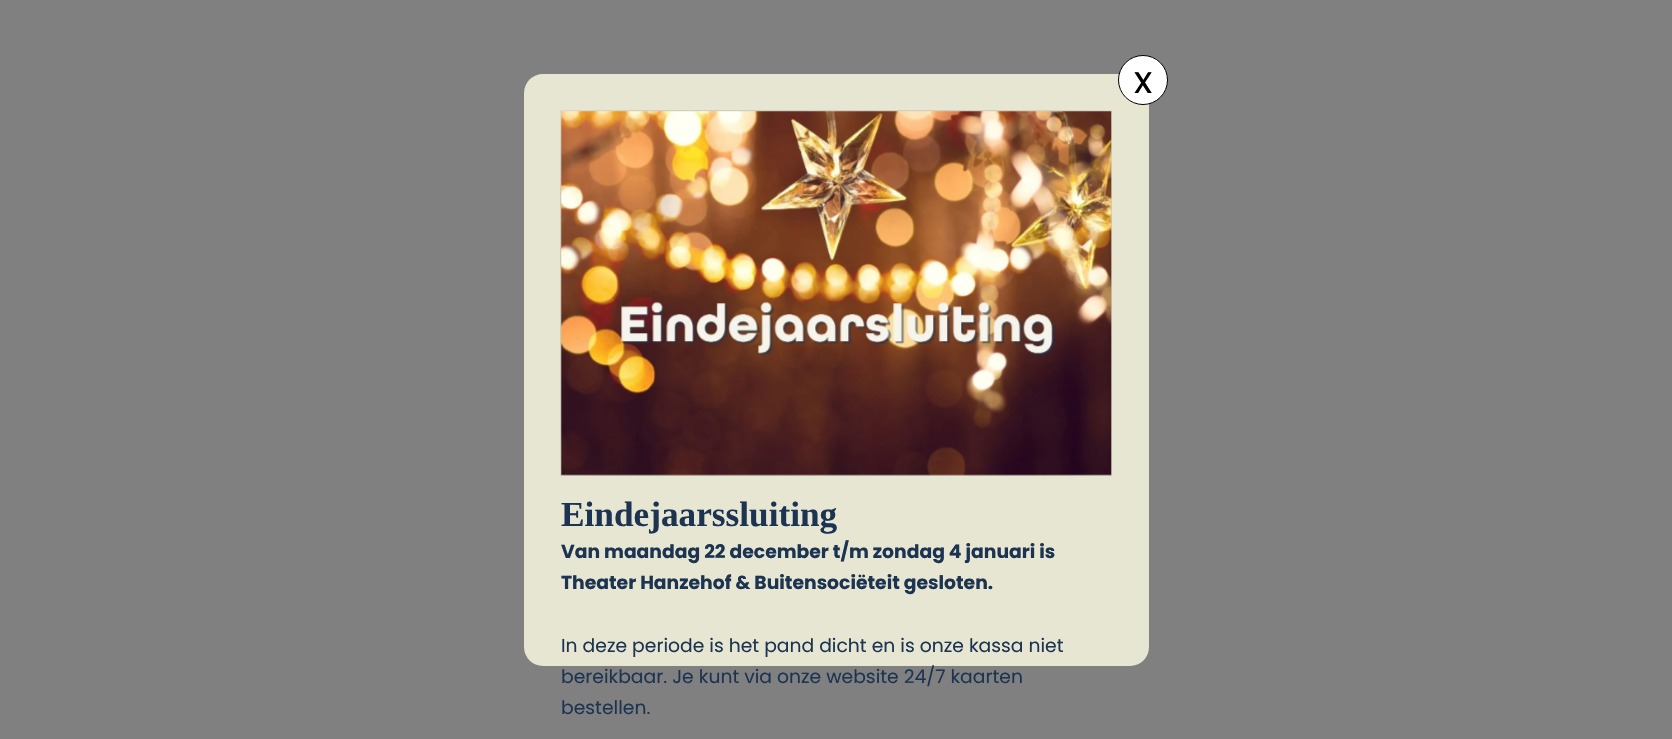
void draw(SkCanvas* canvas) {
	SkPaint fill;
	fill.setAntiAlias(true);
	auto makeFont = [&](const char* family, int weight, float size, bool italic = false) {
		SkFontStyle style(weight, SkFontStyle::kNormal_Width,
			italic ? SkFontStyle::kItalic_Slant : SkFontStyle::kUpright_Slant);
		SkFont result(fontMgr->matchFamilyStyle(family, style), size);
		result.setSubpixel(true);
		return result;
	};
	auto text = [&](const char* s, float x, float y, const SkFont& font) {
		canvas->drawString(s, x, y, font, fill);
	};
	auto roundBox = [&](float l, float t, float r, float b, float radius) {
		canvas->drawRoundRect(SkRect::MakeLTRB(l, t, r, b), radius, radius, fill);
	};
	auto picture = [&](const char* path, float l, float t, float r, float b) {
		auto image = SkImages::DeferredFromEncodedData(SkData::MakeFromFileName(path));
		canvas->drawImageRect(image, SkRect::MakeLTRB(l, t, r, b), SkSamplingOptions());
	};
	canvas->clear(0xFF808080);
	fill.setColor(0xFFE7E6D3);
	roundBox(524, 74, 1149, 666, 19);
	fill.setColor(0xFFFFFFFF);
	canvas->drawCircle(1143, 80, 24.5f, fill);
	fill.setStyle(SkPaint::kStroke_Style);
	fill.setStrokeWidth(1);
	fill.setColor(0xFF000000);
	canvas->drawCircle(1143, 80, 24.5f, fill);
	picture("image0.png", 560, 110, 1112, 476);
	auto font1 = makeFont("Poppins", 400, 38);
	fill.setStyle(SkPaint::kFill_Style);
	text("x", 1134, 93, font1);
	auto font2 = makeFont("Liberation Serif", 700, 35.25f);
	fill.setColor(0xFF1C3451);
	text("Eindejaarssluiting", 561, 526, font2);
	auto font3 = makeFont("Poppins", 700, 18.75f);
	text("Van maandag 22 december t/m zondag 4 januari is", 561, 558, font3);
	text("Theater Hanzehof & Buitensociëteit gesloten.", 561, 589, font3);
	auto font4 = makeFont("Poppins", 400, 18.75f);
	text("In deze periode is het pand dicht en is onze kassa niet", 561, 652, font4);
	text("bereikbaar. Je kunt via onze website 24/7 kaarten", 561, 683, font4);
	text("bestellen.", 561, 714, font4);
}
